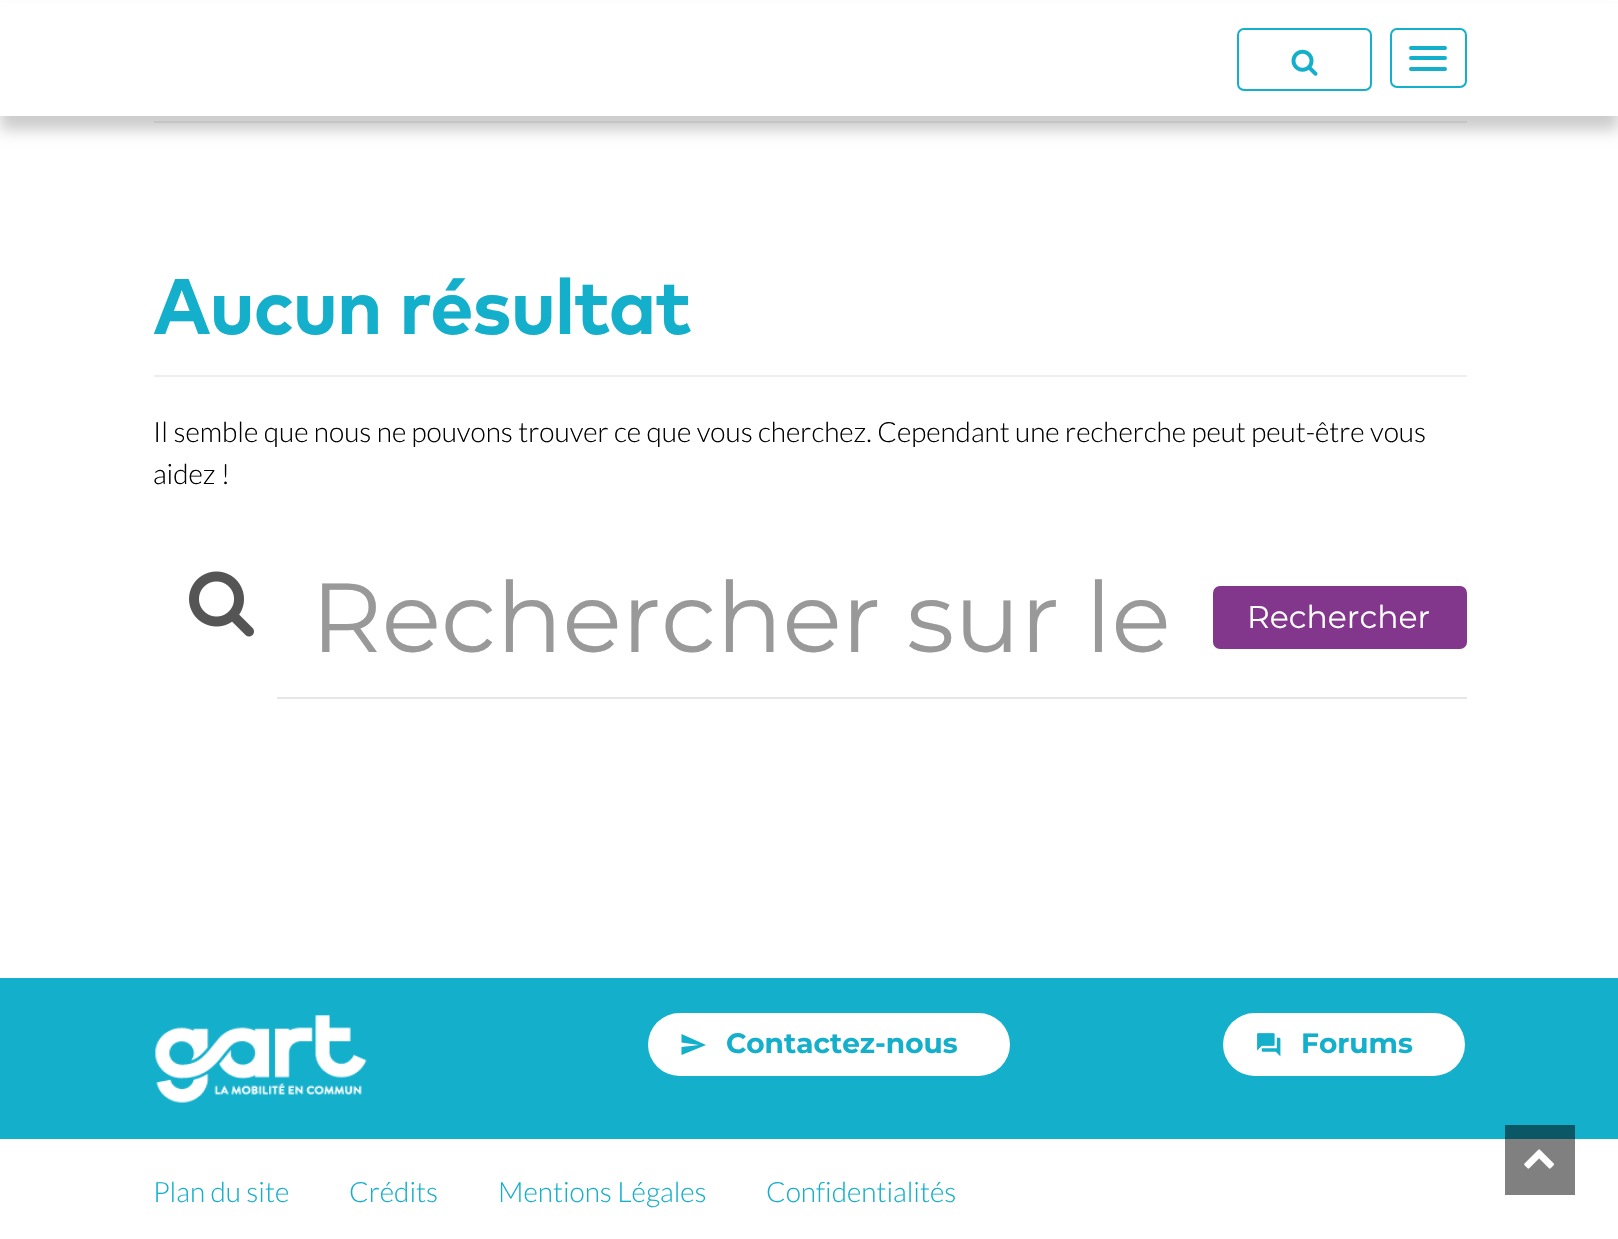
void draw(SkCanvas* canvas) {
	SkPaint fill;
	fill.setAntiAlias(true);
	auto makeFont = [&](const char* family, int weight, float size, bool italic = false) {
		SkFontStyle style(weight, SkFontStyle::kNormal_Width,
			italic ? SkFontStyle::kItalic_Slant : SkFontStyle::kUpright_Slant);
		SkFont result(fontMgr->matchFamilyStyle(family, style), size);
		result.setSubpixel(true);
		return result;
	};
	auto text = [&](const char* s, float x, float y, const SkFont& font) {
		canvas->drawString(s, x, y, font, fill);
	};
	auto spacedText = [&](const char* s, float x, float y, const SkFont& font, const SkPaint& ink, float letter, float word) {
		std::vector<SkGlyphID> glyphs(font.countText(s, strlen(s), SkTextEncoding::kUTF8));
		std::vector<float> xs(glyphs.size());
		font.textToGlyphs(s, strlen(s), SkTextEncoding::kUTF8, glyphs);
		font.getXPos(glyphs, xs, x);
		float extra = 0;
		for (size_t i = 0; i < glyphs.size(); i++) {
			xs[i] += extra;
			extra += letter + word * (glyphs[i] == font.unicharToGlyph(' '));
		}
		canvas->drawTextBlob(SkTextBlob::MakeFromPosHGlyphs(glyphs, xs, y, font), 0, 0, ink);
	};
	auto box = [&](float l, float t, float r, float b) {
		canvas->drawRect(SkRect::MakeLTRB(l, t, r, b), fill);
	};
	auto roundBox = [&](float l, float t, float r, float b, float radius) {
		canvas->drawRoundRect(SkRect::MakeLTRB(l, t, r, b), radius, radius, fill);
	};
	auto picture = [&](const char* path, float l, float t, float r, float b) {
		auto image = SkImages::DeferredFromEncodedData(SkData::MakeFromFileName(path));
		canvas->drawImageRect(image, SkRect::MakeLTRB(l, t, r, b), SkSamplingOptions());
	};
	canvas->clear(0xFFFFFFFF);
	fill.setColor(0xFFEEEEEE);
	box(154, 121, 1467, 123);
	fill.setColor(0x33000000);
	fill.setMaskFilter(SkMaskFilter::MakeBlur(kNormal_SkBlurStyle, 7));
	canvas->drawRect(SkRect::MakeLTRB(0, 14, 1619, 130), fill);
	fill.setMaskFilter(nullptr);
	fill.setColor(0xFFFFFFFF);
	box(0, 3, 1618, 116);
	fill.setStyle(SkPaint::kStroke_Style);
	fill.setStrokeWidth(2);
	fill.setColor(0xFF13AFCB);
	canvas->drawRoundRect(SkRect::MakeLTRB(1238, 29, 1371, 90), 6, 6, fill);
	picture("image0.png", 1291, 49, 1318, 76);
	canvas->drawRoundRect(SkRect::MakeLTRB(1391, 29, 1466, 87), 6, 6, fill);
	fill.setStyle(SkPaint::kFill_Style);
	roundBox(1409, 46, 1447, 50, 2);
	roundBox(1409, 56, 1447, 60, 2);
	roundBox(1409, 67, 1447, 71, 2);
	fill.setColor(0xFFEEEEEE);
	box(154, 375, 1467, 377);
	fill.setColor(0xFFE6E6E6);
	box(277, 697, 1467, 699);
	picture("image1.png", 189, 571, 254, 637);
	fill.setColor(0xFF82368C);
	roundBox(1213, 586, 1467, 649, 7);
	fill.setColor(0xFF13AFCB);
	box(0, 978, 1618, 1139);
	fill.setColor(0xFF0A5866);
	box(1505, 1125, 1575, 1139);
	picture("image2.png", 155, 1015, 367, 1103);
	fill.setColor(0xFFFFFFFF);
	roundBox(648, 1013, 1010, 1076, 31.5f);
	fill.setColor(0xFF13AFCB);
	canvas->drawPath(SkPathBuilder().moveTo(681.5f, 1055).lineTo(681.5f, 1047).lineTo(699, 1045).lineTo(681.5f, 1042.5f).lineTo(681.5f, 1034).lineTo(706, 1045).close().detach(), fill);
	fill.setColor(0xFFFFFFFF);
	roundBox(1223, 1013, 1465, 1076, 31.5f);
	picture("image3.png", 1257, 1033, 1281, 1057);
	fill.setColor(0xFF808080);
	box(1505, 1139, 1575, 1195);
	picture("image4.png", 1524, 1149, 1554, 1169);
	auto font1 = makeFont("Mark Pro", 700, 78.5f);
	fill.setColor(0xFF13AFCB);
	spacedText("Aucun résultat", 153, 334, font1, fill, -1.75f, 0);
	auto font2 = makeFont("Lato", 300, 28);
	fill.setColor(0xFF000000);
	text("Il semble que nous ne pouvons trouver ce que vous cherchez. Cependant une recherche peut peut-être vous", 153, 442, font2);
	text("aidez !", 153, 484, font2);
	auto font3 = makeFont("Montserrat", 400, 98);
	fill.setColor(0xFF999999);
	text("Rechercher sur le", 311, 652, font3);
	auto font4 = makeFont("Montserrat", 400, 31.5f);
	fill.setColor(0xFFFFFFFF);
	text("Rechercher", 1247, 628, font4);
	auto font5 = makeFont("Montserrat", 700, 28);
	fill.setColor(0xFF13AFCB);
	text("Contactez-nous", 726, 1053, font5);
	text("Forums", 1301, 1053, font5);
	text("Plan du site", 153, 1202, font2);
	text("Crédits", 349, 1202, font2);
	text("Mentions Légales", 498, 1202, font2);
	text("Confidentialités", 766, 1202, font2);
}
